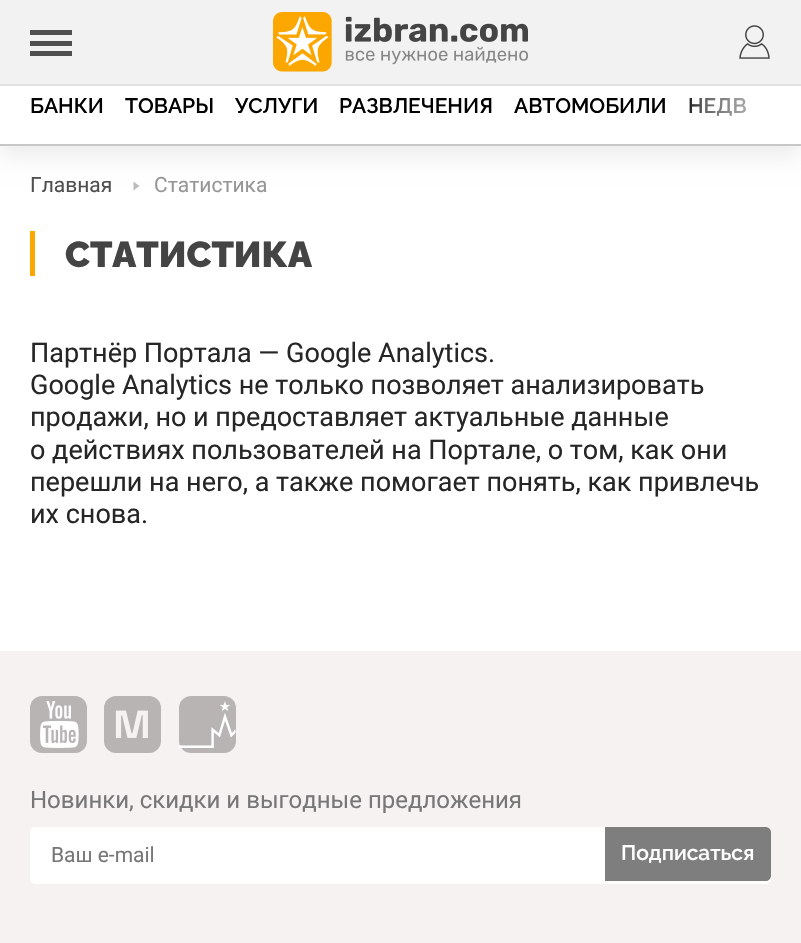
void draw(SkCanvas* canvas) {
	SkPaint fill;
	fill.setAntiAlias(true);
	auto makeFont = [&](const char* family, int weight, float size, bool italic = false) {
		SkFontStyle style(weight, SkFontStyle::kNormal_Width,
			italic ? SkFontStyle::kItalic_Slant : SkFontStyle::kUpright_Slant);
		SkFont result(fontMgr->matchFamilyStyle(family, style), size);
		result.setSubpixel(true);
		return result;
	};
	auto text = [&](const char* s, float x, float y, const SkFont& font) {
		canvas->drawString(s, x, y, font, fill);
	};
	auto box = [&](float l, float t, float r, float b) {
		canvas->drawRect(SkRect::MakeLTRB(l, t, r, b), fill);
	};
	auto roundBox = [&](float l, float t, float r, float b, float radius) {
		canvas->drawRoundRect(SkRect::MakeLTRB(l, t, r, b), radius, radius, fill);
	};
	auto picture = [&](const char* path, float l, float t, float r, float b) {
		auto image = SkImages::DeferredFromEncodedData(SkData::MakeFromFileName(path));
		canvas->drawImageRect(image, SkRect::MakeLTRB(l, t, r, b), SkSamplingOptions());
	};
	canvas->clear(0xFFFFFFFF);
	fill.setColor(0xFFBDBDBD);
	canvas->drawPath(SkPathBuilder().moveTo(133.5f, 190.5f).lineTo(133.5f, 181.5f).lineTo(139.5f, 186).close().detach(), fill);
	fill.setColor(0x14000000);
	fill.setMaskFilter(SkMaskFilter::MakeBlur(kNormal_SkBlurStyle, 11));
	canvas->drawRect(SkRect::MakeLTRB(0, 9, 801, 155), fill);
	fill.setMaskFilter(nullptr);
	fill.setColor(0xFFFFFFFF);
	box(0, 86, 800, 144);
	fill.setColor(0xFFC7C7C7);
	box(0, 144, 801, 146);
	fill.setColor(0xFFF2F2F2);
	box(0, 0, 801, 84);
	fill.setColor(0xFFE0E0E0);
	box(0, 84, 801, 86);
	fill.setColor(0xFF4F4F4F);
	box(30, 41, 72, 46);
	box(30, 30, 72, 35);
	box(30, 51, 72, 56);
	picture("image0.png", 273, 12, 528, 72);
	picture("image1.png", 739, 25, 770, 59);
	fill.setColor(0xFFFCA600);
	box(30, 231, 35, 276);
	fill.setColor(0xFFF7F2F2);
	box(0, 651, 801, 943);
	fill.setColor(0xFFB8B4B4);
	roundBox(30, 696, 87, 753, 12);
	picture("image2.png", 40, 701, 79, 748);
	roundBox(104, 696, 161, 753, 12);
	picture("image3.png", 115, 710, 148, 738);
	roundBox(179, 696, 236, 753, 12);
	picture("image4.png", 179, 701, 236, 748);
	fill.setColor(0xFFFFFFFF);
	roundBox(30, 827, 771, 884, 5);
	fill.setColor(0xFF7E7E7E);
	canvas->drawPath(SkPathBuilder().moveTo(606, 828).lineTo(766, 828).cubicTo(768, 828, 770, 830, 770, 832).lineTo(770, 876).cubicTo(770, 878, 768, 880, 766, 880).lineTo(606, 880).close().detach(), fill);
	fill.setStyle(SkPaint::kStroke_Style);
	fill.setStrokeWidth(2);
	canvas->drawPath(SkPathBuilder().moveTo(606, 828).lineTo(766, 828).cubicTo(768, 828, 770, 830, 770, 832).lineTo(770, 876).cubicTo(770, 878, 768, 880, 766, 880).lineTo(606, 880).close().detach(), fill);
	auto font1 = makeFont("Raleway", 600, 21);
	fill.setStyle(SkPaint::kFill_Style);
	fill.setColor(0xFF000000);
	text("БАНКИ", 30, 113, font1);
	text("ТОВАРЫ", 125, 113, font1);
	text("УСЛУГИ", 235, 113, font1);
	text("РАЗВЛЕЧЕНИЯ", 339, 113, font1);
	text("АВТОМОБИЛИ", 514, 113, font1);
	text("НЕДВ", 688, 113, font1);
	{
		const SkColor colors[] = {0x00FFFFFF, 0x66FFFFFF, 0xFFFFFFFF};
		const float stops[] = {0, 0.2f, 1};
		const SkPoint ends[] = {{681, 113}, {801, 113}};
		fill.setShader(SkGradientShader::MakeLinear(ends, colors, stops, 3, SkTileMode::kClamp));
		fill.setAlpha(255);
	}
	box(689, 86, 801, 144);
	auto font2 = makeFont("Roboto", 400, 21);
	fill.setShader(nullptr);
	fill.setColor(0xFF4F4F4F);
	text("Главная", 30, 192, font2);
	fill.setColor(0xFF979797);
	text("Статистика", 154, 192, font2);
	auto font3 = makeFont("Raleway", 900, 36);
	fill.setColor(0xFF444444);
	text("СТАТИСТИКА", 65, 267, font3);
	auto font4 = makeFont("Roboto", 400, 27);
	fill.setColor(0xFF262626);
	text("Партнёр Портала — Google Analytics.", 30, 362, font4);
	text("Google Analytics не только позволяет анализировать", 30, 394, font4);
	text("продажи, но и предоставляет актуальные данные", 30, 426, font4);
	text("о действиях пользователей на Портале, о том, как они", 30, 459, font4);
	text("перешли на него, а также помогает понять, как привлечь", 30, 491, font4);
	text("их снова.", 30, 523, font4);
	auto font5 = makeFont("Roboto", 400, 24);
	fill.setColor(0xFF777777);
	text("Новинки, скидки и выгодные предложения", 30, 808, font5);
	text("Ваш e-mail", 51, 862, font2);
	fill.setColor(0xFFFFFFFF);
	text("Подписаться", 621, 860, font1);
}
